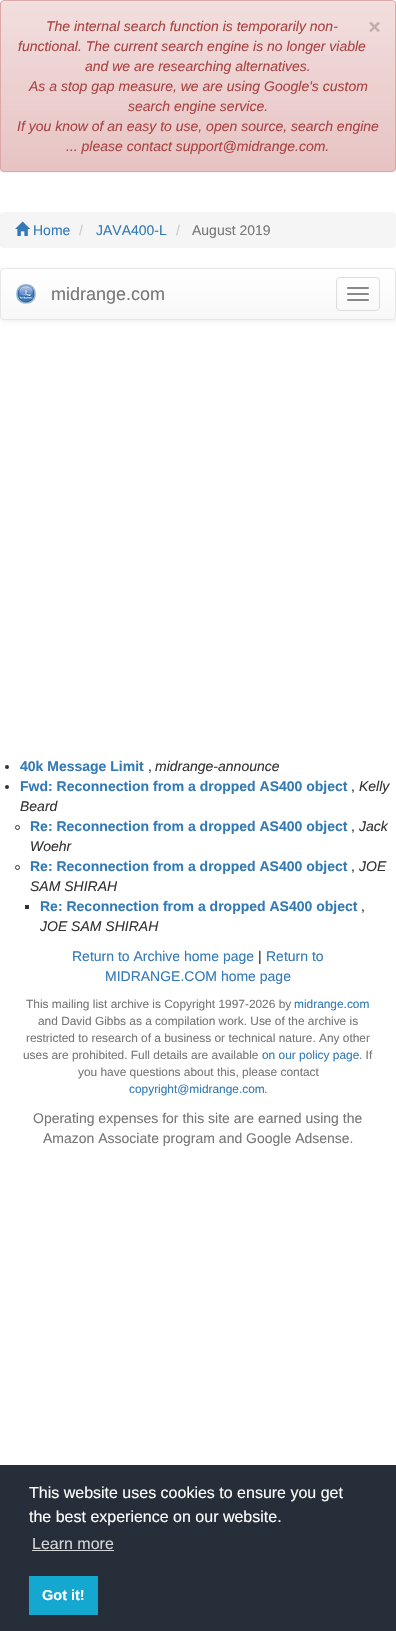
void draw(SkCanvas* canvas) {
	SkPaint fill;
	fill.setAntiAlias(true);
	auto makeFont = [&](const char* family, int weight, float size, bool italic = false) {
		SkFontStyle style(weight, SkFontStyle::kNormal_Width,
			italic ? SkFontStyle::kItalic_Slant : SkFontStyle::kUpright_Slant);
		SkFont result(fontMgr->matchFamilyStyle(family, style), size);
		result.setSubpixel(true);
		return result;
	};
	auto text = [&](const char* s, float x, float y, const SkFont& font) {
		canvas->drawString(s, x, y, font, fill);
	};
	auto box = [&](float l, float t, float r, float b) {
		canvas->drawRect(SkRect::MakeLTRB(l, t, r, b), fill);
	};
	auto roundBox = [&](float l, float t, float r, float b, float radius) {
		canvas->drawRoundRect(SkRect::MakeLTRB(l, t, r, b), radius, radius, fill);
	};
	auto picture = [&](const char* path, float l, float t, float r, float b) {
		auto image = SkImages::DeferredFromEncodedData(SkData::MakeFromFileName(path));
		canvas->drawImageRect(image, SkRect::MakeLTRB(l, t, r, b), SkSamplingOptions());
	};
	canvas->clear(0xFFFFFFFF);
	fill.setColor(0x0D000000);
	fill.setMaskFilter(SkMaskFilter::MakeBlur(kNormal_SkBlurStyle, 1));
	canvas->drawRoundRect(SkRect::MakeLTRB(0, 1, 396, 173), 4, 4, fill);
	fill.setMaskFilter(nullptr);
	canvas->save();
	canvas->clipPath(SkPathBuilder().moveTo(4, 0).lineTo(392, 0).cubicTo(394, 0, 396, 2, 396, 4).lineTo(396, 168).cubicTo(396, 170, 394, 172, 392, 172).lineTo(4, 172).cubicTo(2, 172, 0, 170, 0, 168).lineTo(0, 4).cubicTo(0, 2, 2, 0, 4, 0).close().detach(), true);
	{
		const SkColor colors[] = {0xFFF2DEDE, 0xFFE7C3C3};
		const float stops[] = {0, 1};
		const SkPoint ends[] = {{198, 1}, {198, 171}};
		fill.setShader(SkGradientShader::MakeLinear(ends, colors, stops, 2, SkTileMode::kClamp));
		fill.setAlpha(255);
	}
	box(0, 1, 396, 171);
	canvas->restore();
	fill.setShader(nullptr);
	fill.setColor(0xFFF5E6E6);
	canvas->drawPath(SkPathBuilder().moveTo(4, 2).lineTo(392, 2).cubicTo(394, 2, 395, 3, 395, 5).cubicTo(395, 3, 394, 1, 392, 1).lineTo(4, 1).lineTo(2, 2).lineTo(1, 5).cubicTo(1, 3, 2, 2, 4, 2).close().detach(), fill);
	fill.setStyle(SkPaint::kStroke_Style);
	fill.setStrokeWidth(1);
	fill.setColor(0xFFDCA7A7);
	canvas->drawRoundRect(SkRect::MakeLTRB(0.5f, 0.5f, 395.5f, 171.5f), 3.5f, 3.5f, fill);
	fill.setStyle(SkPaint::kFill_Style);
	fill.setColor(0xFFF5F5F5);
	roundBox(0, 212, 396, 248, 4);
	picture("image0.png", 15, 221, 30, 236);
	fill.setColor(0x12000000);
	fill.setMaskFilter(SkMaskFilter::MakeBlur(kNormal_SkBlurStyle, 2.5f));
	canvas->drawRoundRect(SkRect::MakeLTRB(0, 269, 396, 321), 4, 4, fill);
	fill.setMaskFilter(nullptr);
	canvas->save();
	canvas->clipPath(SkPathBuilder().moveTo(4, 268).lineTo(392, 268).cubicTo(394, 268, 396, 270, 396, 272).lineTo(396, 316).cubicTo(396, 318, 394, 320, 392, 320).lineTo(4, 320).cubicTo(2, 320, 0, 318, 0, 316).lineTo(0, 272).cubicTo(0, 270, 2, 268, 4, 268).close().detach(), true);
	{
		const SkColor colors[] = {0xFFFFFFFF, 0xFFF8F8F8};
		const float stops[] = {0, 1};
		const SkPoint ends[] = {{198, 269}, {198, 319}};
		fill.setShader(SkGradientShader::MakeLinear(ends, colors, stops, 2, SkTileMode::kClamp));
		fill.setAlpha(255);
	}
	box(0, 269, 396, 319);
	canvas->restore();
	fill.setStyle(SkPaint::kStroke_Style);
	fill.setShader(nullptr);
	fill.setColor(0xFFE7E7E7);
	canvas->drawRoundRect(SkRect::MakeLTRB(0.5f, 268.5f, 395.5f, 319.5f), 3.5f, 3.5f, fill);
	picture("image1.png", 16, 284, 36, 304);
	fill.setColor(0xFFDDDDDD);
	canvas->drawRoundRect(SkRect::MakeLTRB(336.5f, 277.5f, 379.5f, 310.5f), 3.5f, 3.5f, fill);
	fill.setStyle(SkPaint::kFill_Style);
	fill.setColor(0xFF888888);
	roundBox(347, 287, 369, 289, 1);
	roundBox(347, 293, 369, 295, 1);
	roundBox(347, 299, 369, 301, 1);
	fill.setColor(0xFF333333);
	canvas->drawCircle(7, 767, 2, fill);
	canvas->drawCircle(7, 787, 2, fill);
	fill.setStyle(SkPaint::kStroke_Style);
	canvas->drawCircle(17.5f, 827.5f, 2, fill);
	canvas->drawCircle(17.5f, 867.5f, 2, fill);
	fill.setStyle(SkPaint::kFill_Style);
	box(25, 905, 29, 909);
	fill.setColor(0xFF252E39);
	box(0, 1465, 396, 1631);
	fill.setColor(0xFFD3D5D7);
	box(32, 1550, 114, 1551);
	fill.setColor(0xFF14A7D0);
	box(29, 1576, 98, 1615);
	auto font1 = makeFont("Liberation Sans", 400, 14, true);
	fill.setColor(0xFFA94442);
	text("The internal search function is temporarily non-", 46, 31, font1);
	auto font2 = makeFont("Liberation Sans", 700, 21, true);
	fill.setColor(0xFFC0AEAE);
	text("×", 368, 34, font2);
	fill.setColor(0xFFA94442);
	text("functional. The current search engine is no longer viable", 18, 51, font1);
	text("and we are researching alternatives.", 85, 71, font1);
	text("As a stop gap measure, we are using Google's custom", 29, 91, font1);
	text("search engine service.", 128, 111, font1);
	text("If you know of an easy to use, open source, search engine", 17, 131, font1);
	text("... please contact support@midrange.com.", 66, 151, font1);
	auto font3 = makeFont("Liberation Sans", 400, 14);
	fill.setColor(0xFF337AB7);
	text("Home", 33, 235, font3);
	fill.setColor(0xFFCCCCCC);
	text("/", 79, 235, font3);
	fill.setColor(0xFF337AB7);
	text("JAVA400-L", 96, 235, font3);
	fill.setColor(0xFFCCCCCC);
	text("/", 176, 235, font3);
	fill.setColor(0xFF777777);
	text("August 2019", 192, 235, font3);
	auto font4 = makeFont("Liberation Sans", 400, 18);
	text("midrange.com", 51, 300, font4);
	auto font5 = makeFont("Liberation Sans", 700, 14);
	fill.setColor(0xFF337AB7);
	text("40k Message Limit", 20, 771, font5);
	fill.setColor(0xFF333333);
	text("midrange-announce", 155, 771, font1);
	text(",", 148, 771, font3);
	fill.setColor(0xFF337AB7);
	text("Fwd: Reconnection from a dropped AS400 object", 20, 791, font5);
	fill.setColor(0xFF333333);
	text("Kelly", 359, 791, font1);
	text(",", 351, 791, font3);
	text("Beard", 20, 811, font1);
	fill.setColor(0xFF337AB7);
	text("Re: Reconnection from a dropped AS400 object", 30, 831, font5);
	fill.setColor(0xFF333333);
	text("Jack", 359, 831, font1);
	text(",", 351, 831, font3);
	text("Woehr", 30, 851, font1);
	fill.setColor(0xFF337AB7);
	text("Re: Reconnection from a dropped AS400 object", 30, 871, font5);
	fill.setColor(0xFF333333);
	text("JOE", 359, 871, font1);
	text(",", 351, 871, font3);
	text("SAM SHIRAH", 30, 891, font1);
	fill.setColor(0xFF337AB7);
	text("Re: Reconnection from a dropped AS400 object", 40, 911, font5);
	fill.setColor(0xFF333333);
	text(",", 361, 911, font3);
	text("JOE SAM SHIRAH", 40, 931, font1);
	fill.setColor(0xFF337AB7);
	text("Return to Archive home page", 72, 961, font3);
	fill.setColor(0xFF333333);
	text("|", 258, 961, font3);
	fill.setColor(0xFF337AB7);
	text("Return to", 266, 961, font3);
	text("MIDRANGE.COM home page", 105, 981, font3);
	auto font6 = makeFont("Liberation Sans", 400, 11.9f);
	fill.setColor(0xFF777777);
	text("This mailing list archive is Copyright 1997-2026 by", 26, 1008, font6);
	fill.setColor(0xFF337AB7);
	text("midrange.com", 294, 1008, font6);
	fill.setColor(0xFF777777);
	text("and David Gibbs as a compilation work. Use of the archive is", 38, 1025, font6);
	text("restricted to research of a business or technical nature. Any other", 26, 1042, font6);
	text("uses are prohibited. Full details are available", 23, 1059, font6);
	fill.setColor(0xFF337AB7);
	text("on our policy page", 262, 1059, font6);
	fill.setColor(0xFF777777);
	text(". If", 359, 1059, font6);
	text("you have questions about this, please contact", 78, 1076, font6);
	fill.setColor(0xFF337AB7);
	text("copyright@midrange.com", 129, 1093, font6);
	fill.setColor(0xFF777777);
	text(".", 264, 1093, font6);
	text("Operating expenses for this site are earned using the", 33, 1123, font3);
	text("Amazon Associate program and Google Adsense.", 43, 1143, font3);
	auto font7 = makeFont("Liberation Sans", 400, 16);
	fill.setColor(0xFFFFFFFF);
	text("This website uses cookies to ensure you get", 29, 1498, font7);
	text("the best experience on our website.", 29, 1522, font7);
	fill.setColor(0xFFD3D5D7);
	text("Learn more", 32, 1549, font7);
	auto font8 = makeFont("Liberation Sans", 700, 14.5f);
	fill.setColor(0xFFFFFFFF);
	text("Got it!", 42, 1600, font8);
}
